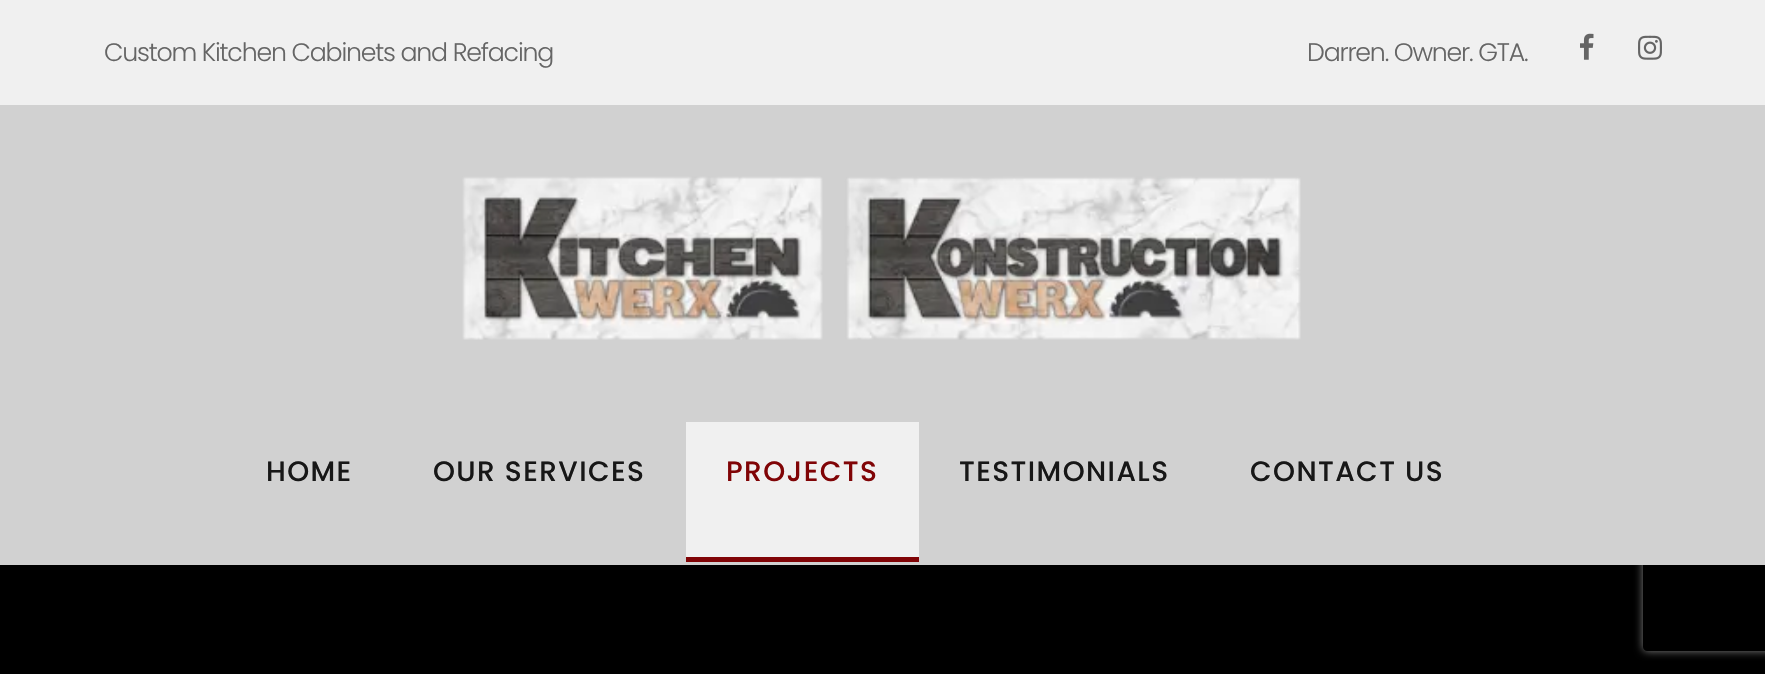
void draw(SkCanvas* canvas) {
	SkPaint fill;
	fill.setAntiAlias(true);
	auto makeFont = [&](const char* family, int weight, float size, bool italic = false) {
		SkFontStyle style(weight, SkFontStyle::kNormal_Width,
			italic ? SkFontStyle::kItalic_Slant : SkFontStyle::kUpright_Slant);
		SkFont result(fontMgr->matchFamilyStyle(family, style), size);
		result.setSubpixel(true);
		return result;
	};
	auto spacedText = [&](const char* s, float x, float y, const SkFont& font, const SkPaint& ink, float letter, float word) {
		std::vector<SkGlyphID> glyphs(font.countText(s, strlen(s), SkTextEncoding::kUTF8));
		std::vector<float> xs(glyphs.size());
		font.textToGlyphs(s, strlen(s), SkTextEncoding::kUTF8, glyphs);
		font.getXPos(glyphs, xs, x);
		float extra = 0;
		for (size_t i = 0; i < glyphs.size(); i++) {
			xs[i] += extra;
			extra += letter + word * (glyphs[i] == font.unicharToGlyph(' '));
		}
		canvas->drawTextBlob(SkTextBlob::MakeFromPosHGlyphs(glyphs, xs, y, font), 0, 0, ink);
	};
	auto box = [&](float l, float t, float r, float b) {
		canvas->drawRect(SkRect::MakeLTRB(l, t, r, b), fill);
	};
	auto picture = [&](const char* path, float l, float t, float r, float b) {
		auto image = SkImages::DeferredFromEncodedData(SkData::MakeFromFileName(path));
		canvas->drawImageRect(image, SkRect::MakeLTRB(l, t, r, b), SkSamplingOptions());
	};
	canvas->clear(0xFFF0F0F0);
	picture("image0.png", 1580, 33, 1594, 60);
	picture("image1.png", 1638, 35, 1662, 60);
	fill.setColor(0xFF000000);
	box(0, 565, 1765, 674);
	canvas->save();
	canvas->clipPath(SkPathBuilder(SkPathFillType::kEvenOdd).moveTo(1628, 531).lineTo(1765, 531).lineTo(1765, 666).lineTo(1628, 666).close().moveTo(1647, 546).lineTo(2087, 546).cubicTo(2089, 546, 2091, 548, 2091, 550).lineTo(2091, 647).cubicTo(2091, 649, 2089, 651, 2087, 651).lineTo(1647, 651).cubicTo(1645, 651, 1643, 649, 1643, 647).lineTo(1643, 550).cubicTo(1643, 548, 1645, 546, 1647, 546).close().detach(), true);
	fill.setColor(0xFF808080);
	fill.setMaskFilter(SkMaskFilter::MakeBlur(kNormal_SkBlurStyle, 4.5f));
	canvas->drawRoundRect(SkRect::MakeLTRB(1643, 546, 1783, 651), 4, 4, fill);
	fill.setMaskFilter(nullptr);
	canvas->restore();
	fill.setColor(0xFFD1D1D1);
	box(0, 105, 1765, 565);
	picture("image2.png", 462, 176, 1301, 340);
	fill.setColor(0xFFF0F0F0);
	box(686, 422, 919, 557);
	fill.setColor(0xFF800406);
	box(686, 557, 919, 562);
	auto font1 = makeFont("Poppins", 300, 25.25f);
	fill.setColor(0xFF656565);
	spacedText("Custom Kitchen Cabinets and Refacing", 104, 61, font1, fill, -1.2f, 0);
	spacedText("Darren. Owner. GTA.", 1307, 61, font1, fill, -1.2f, 0);
	auto font2 = makeFont("Poppins", 500, 28);
	fill.setColor(0xFF171717);
	spacedText("HOME", 266, 481, font2, fill, 1.4f, 0);
	spacedText("OUR SERVICES", 433, 481, font2, fill, 1.4f, 0);
	fill.setColor(0xFF800406);
	spacedText("PROJECTS", 726, 481, font2, fill, 1.4f, 0);
	fill.setColor(0xFF171717);
	spacedText("TESTIMONIALS", 959, 481, font2, fill, 1.4f, 0);
	spacedText("CONTACT US", 1250, 481, font2, fill, 1.4f, 0);
}
